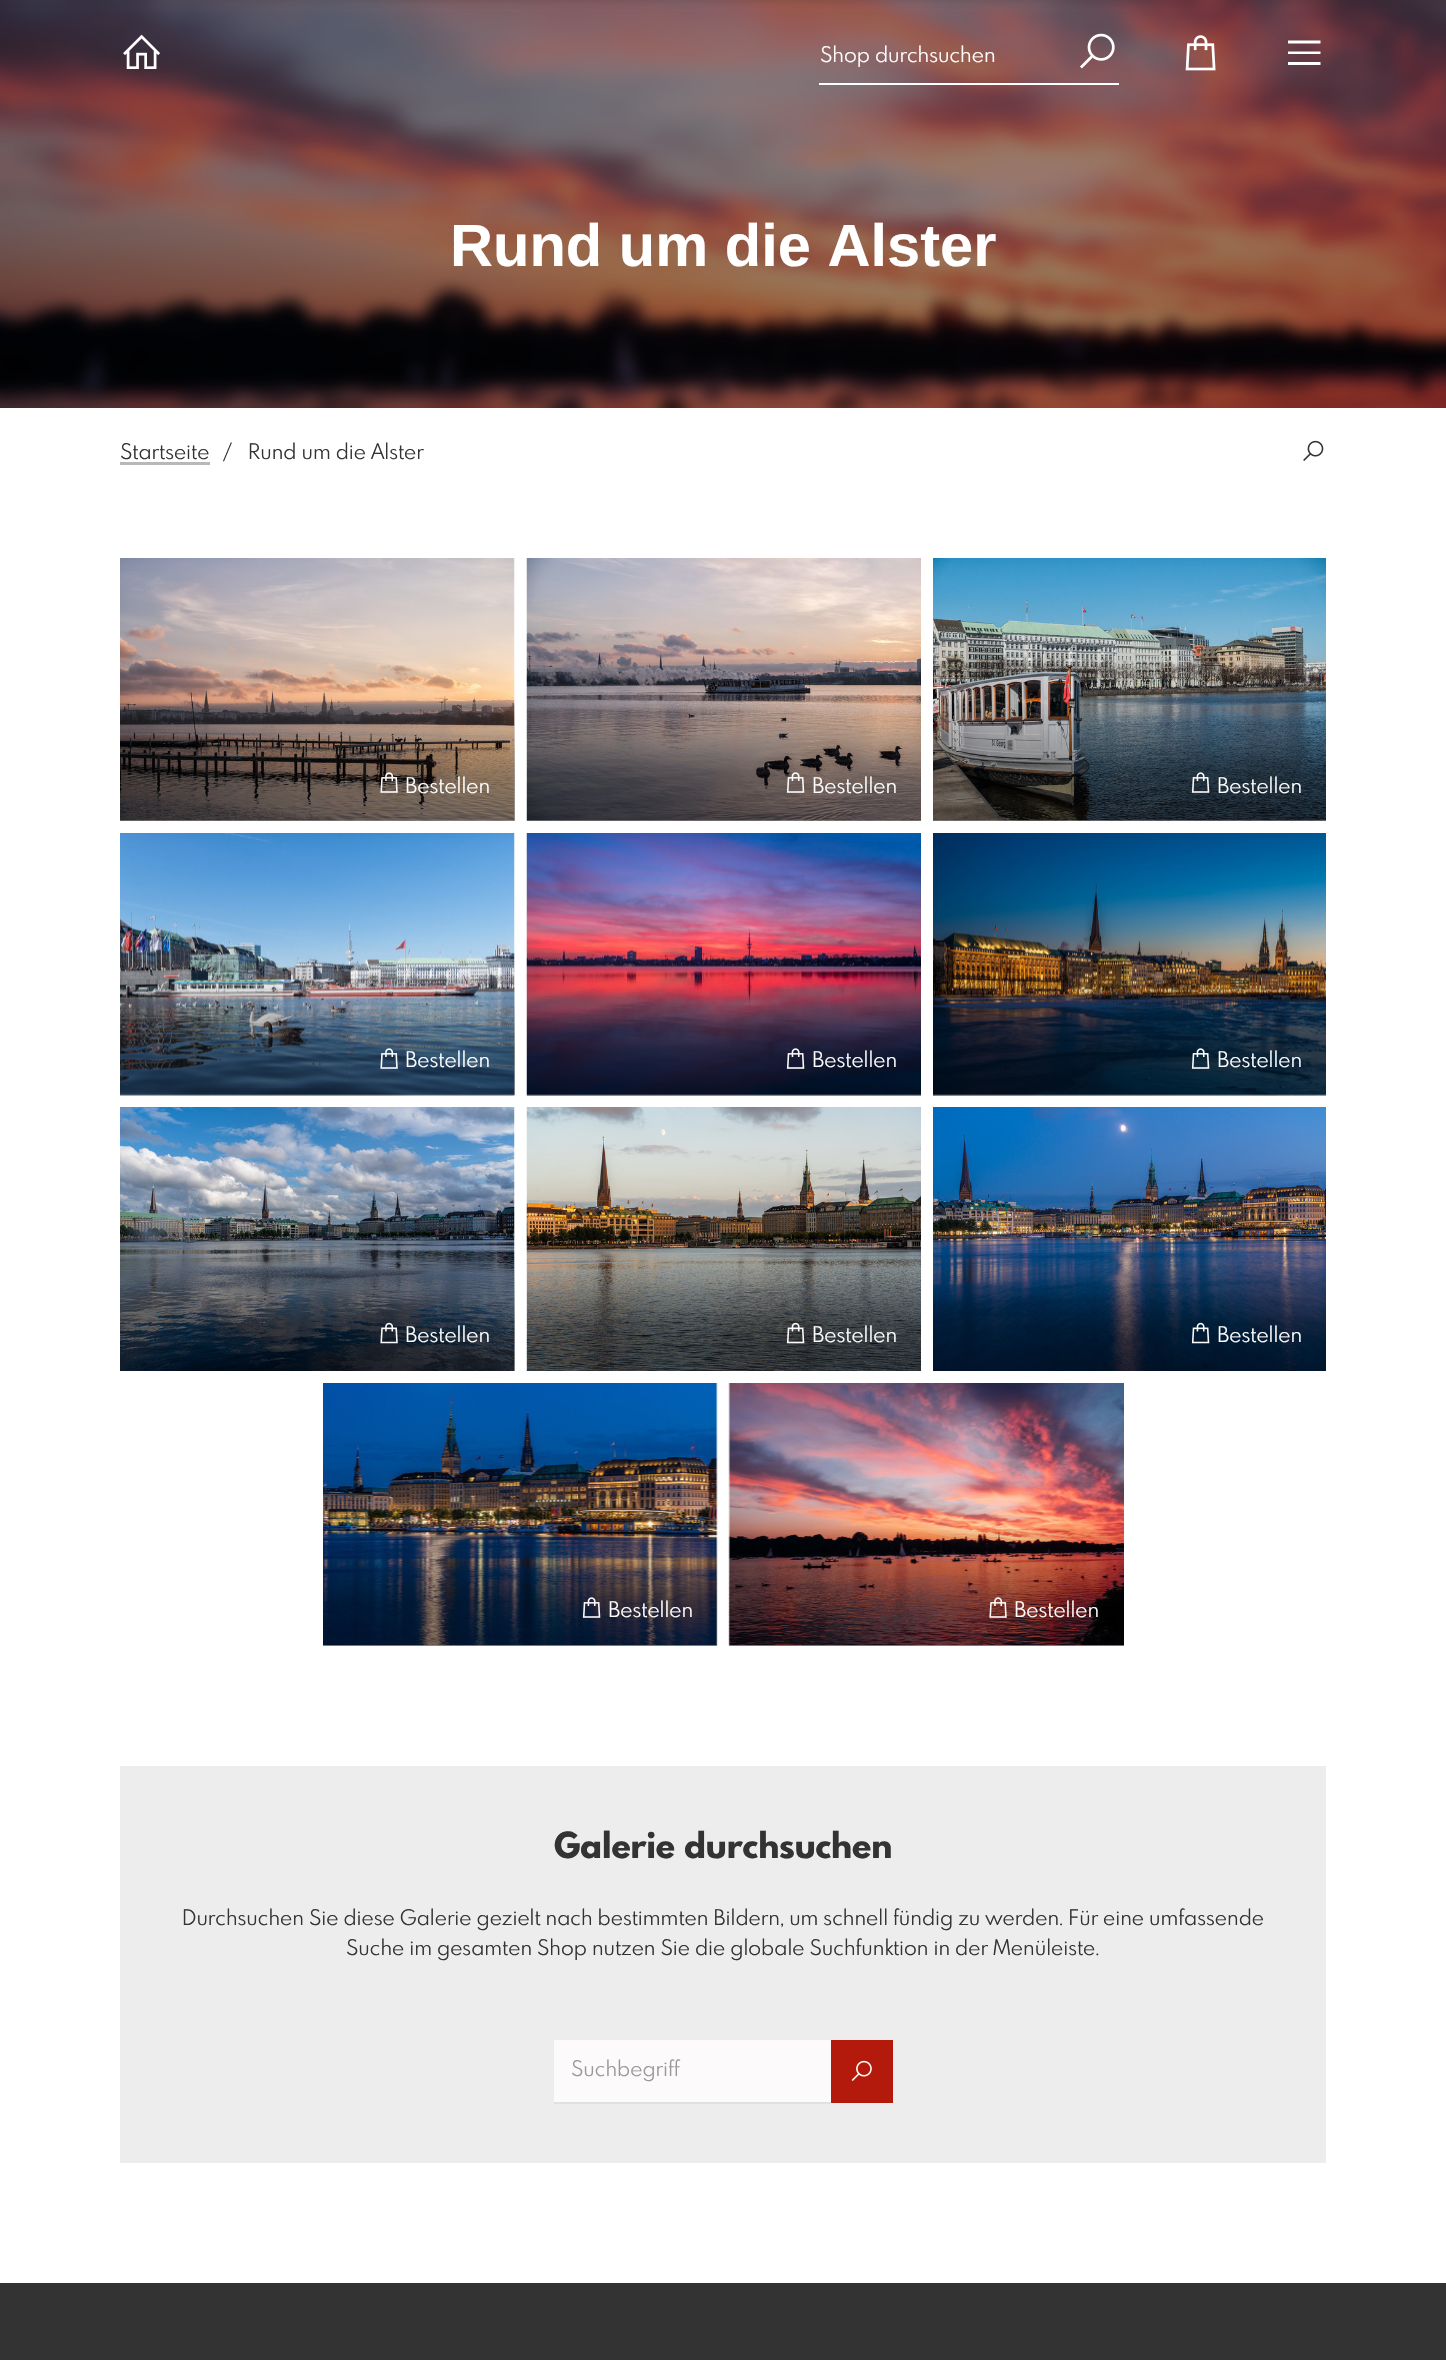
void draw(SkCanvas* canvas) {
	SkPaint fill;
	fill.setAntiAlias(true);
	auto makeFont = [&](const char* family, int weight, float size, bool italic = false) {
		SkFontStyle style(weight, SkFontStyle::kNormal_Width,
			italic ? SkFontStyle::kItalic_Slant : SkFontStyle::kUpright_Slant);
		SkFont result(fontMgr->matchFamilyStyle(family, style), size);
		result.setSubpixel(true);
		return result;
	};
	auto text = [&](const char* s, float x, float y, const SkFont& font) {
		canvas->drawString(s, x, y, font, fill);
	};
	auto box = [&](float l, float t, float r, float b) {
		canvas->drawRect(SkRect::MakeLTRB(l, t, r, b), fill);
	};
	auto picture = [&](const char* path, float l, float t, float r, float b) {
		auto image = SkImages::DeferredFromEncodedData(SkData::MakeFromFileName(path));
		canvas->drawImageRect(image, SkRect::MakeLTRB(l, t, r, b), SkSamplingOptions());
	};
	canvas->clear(0xFF333333);
	picture("image0.png", 0, 0, 1446, 408);
	picture("image1.png", 123, 34, 160, 69);
	fill.setColor(0xFFFFFFFF);
	box(819, 83, 1119, 85);
	picture("image2.png", 1080, 33, 1115, 69);
	picture("image3.png", 1185, 35, 1216, 71);
	canvas->drawPath(SkPathBuilder().moveTo(1288, 40.5f).lineTo(1288, 43.5f).lineTo(1320.5f, 43.5f).lineTo(1320.5f, 40.5f).close().moveTo(1288, 51.5f).lineTo(1288, 54).lineTo(1320.5f, 54).lineTo(1320.5f, 51.5f).close().moveTo(1288, 62).lineTo(1288, 65).lineTo(1320.5f, 65).lineTo(1320.5f, 62).close().detach(), fill);
	box(0, 408, 1446, 2283);
	fill.setColor(0xFFB8B8B8);
	box(120, 462, 210, 465);
	picture("image4.png", 1303, 440, 1324, 461);
	picture("image5.png", 120, 558, 515, 821);
	{
		const SkColor colors[] = {0x00000000, 0x00000000, 0x66000000};
		const float stops[] = {0, 0.54f, 0.83f};
		const SkPoint ends[] = {{317, 558}, {317, 821}};
		fill.setShader(SkGradientShader::MakeLinear(ends, colors, stops, 3, SkTileMode::kClamp));
		fill.setAlpha(255);
	}
	box(120, 704, 515, 821);
	picture("image6.png", 380, 772, 398, 793);
	picture("image7.png", 526, 558, 921, 821);
	{
		const SkColor colors[] = {0x00000000, 0x00000000, 0x66000000};
		const float stops[] = {0, 0.54f, 0.83f};
		const SkPoint ends[] = {{724, 558}, {724, 821}};
		fill.setShader(SkGradientShader::MakeLinear(ends, colors, stops, 3, SkTileMode::kClamp));
		fill.setAlpha(255);
	}
	box(527, 704, 921, 821);
	picture("image8.png", 786, 772, 805, 793);
	picture("image9.png", 933, 558, 1326, 821);
	{
		const SkColor colors[] = {0x00000000, 0x00000000, 0x66000000};
		const float stops[] = {0, 0.54f, 0.83f};
		const SkPoint ends[] = {{1130, 558}, {1130, 821}};
		fill.setShader(SkGradientShader::MakeLinear(ends, colors, stops, 3, SkTileMode::kClamp));
		fill.setAlpha(255);
	}
	box(933, 704, 1326, 821);
	picture("image10.png", 1191, 772, 1210, 793);
	picture("image11.png", 120, 833, 515, 1096);
	{
		const SkColor colors[] = {0x00000000, 0x00000000, 0x66000000};
		const float stops[] = {0, 0.54f, 0.83f};
		const SkPoint ends[] = {{317, 833}, {317, 1095}};
		fill.setShader(SkGradientShader::MakeLinear(ends, colors, stops, 3, SkTileMode::kClamp));
		fill.setAlpha(255);
	}
	box(120, 979, 515, 1095);
	picture("image12.png", 380, 1048, 398, 1069);
	picture("image13.png", 526, 833, 921, 1096);
	{
		const SkColor colors[] = {0x00000000, 0x00000000, 0x66000000};
		const float stops[] = {0, 0.54f, 0.83f};
		const SkPoint ends[] = {{724, 833}, {724, 1095}};
		fill.setShader(SkGradientShader::MakeLinear(ends, colors, stops, 3, SkTileMode::kClamp));
		fill.setAlpha(255);
	}
	box(527, 979, 921, 1095);
	picture("image14.png", 786, 1048, 805, 1069);
	picture("image15.png", 933, 833, 1326, 1096);
	{
		const SkColor colors[] = {0x00000000, 0x00000000, 0x66000000};
		const float stops[] = {0, 0.54f, 0.83f};
		const SkPoint ends[] = {{1130, 833}, {1130, 1095}};
		fill.setShader(SkGradientShader::MakeLinear(ends, colors, stops, 3, SkTileMode::kClamp));
		fill.setAlpha(255);
	}
	box(933, 979, 1326, 1095);
	picture("image16.png", 1191, 1048, 1210, 1069);
	picture("image17.png", 120, 1107, 515, 1371);
	{
		const SkColor colors[] = {0x00000000, 0x00000000, 0x66000000};
		const float stops[] = {0, 0.55f, 0.83f};
		const SkPoint ends[] = {{317, 1107}, {317, 1371}};
		fill.setShader(SkGradientShader::MakeLinear(ends, colors, stops, 3, SkTileMode::kClamp));
		fill.setAlpha(255);
	}
	box(120, 1256, 515, 1371);
	picture("image18.png", 380, 1322, 398, 1344);
	picture("image19.png", 526, 1107, 921, 1371);
	picture("image20.png", 786, 1322, 805, 1344);
	picture("image21.png", 933, 1107, 1326, 1371);
	picture("image22.png", 1191, 1322, 1210, 1344);
	picture("image23.png", 323, 1383, 718, 1646);
	{
		const SkColor colors[] = {0x00000000, 0x00000000, 0x66000000};
		const float stops[] = {0, 0.54f, 0.83f};
		const SkPoint ends[] = {{520, 1383}, {520, 1646}};
		fill.setShader(SkGradientShader::MakeLinear(ends, colors, stops, 3, SkTileMode::kClamp));
		fill.setAlpha(255);
	}
	box(323, 1529, 717, 1646);
	picture("image24.png", 582, 1597, 601, 1618);
	picture("image25.png", 728, 1383, 1124, 1646);
	{
		const SkColor colors[] = {0x00000000, 0x00000000, 0x66000000};
		const float stops[] = {0, 0.54f, 0.83f};
		const SkPoint ends[] = {{926, 1383}, {926, 1646}};
		fill.setShader(SkGradientShader::MakeLinear(ends, colors, stops, 3, SkTileMode::kClamp));
		fill.setAlpha(255);
	}
	box(729, 1529, 1124, 1646);
	picture("image26.png", 989, 1597, 1007, 1618);
	fill.setShader(nullptr);
	fill.setColor(0xFFEDEDED);
	box(120, 1766, 1326, 2163);
	fill.setColor(0xFFFCFAFA);
	box(554, 2040, 831, 2102);
	fill.setColor(0xFFE0E0E0);
	box(554, 2102, 831, 2104);
	fill.setColor(0xFFB31A0B);
	box(831, 2040, 893, 2103);
	picture("image27.png", 851, 2060, 872, 2081);
	auto font1 = makeFont("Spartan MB", 400, 21);
	fill.setColor(0xFFFFFFFF);
	text("Shop durchsuchen", 820, 62, font1);
	auto font2 = makeFont("Liberation Sans", 700, 59.6f);
	text("Rund um die Alster", 450, 266, font2);
	fill.setColor(0xFF333333);
	text("Startseite", 120, 459, font1);
	text("/", 223, 459, font1);
	text("Rund um die Alster", 248, 459, font1);
	fill.setColor(0xFFFFFFFF);
	text("Bestellen", 405, 793, font1);
	text("Bestellen", 812, 793, font1);
	text("Bestellen", 1217, 793, font1);
	text("Bestellen", 405, 1067, font1);
	text("Bestellen", 812, 1067, font1);
	text("Bestellen", 1217, 1067, font1);
	text("Bestellen", 405, 1342, font1);
	text("Bestellen", 812, 1342, font1);
	text("Bestellen", 1217, 1342, font1);
	text("Bestellen", 608, 1617, font1);
	text("Bestellen", 1014, 1617, font1);
	auto font3 = makeFont("Spartan MB", 800, 35);
	fill.setColor(0xFF333333);
	text("Galerie durchsuchen", 554, 1858, font3);
	text("Durchsuchen Sie diese Galerie gezielt nach bestimmten Bildern, um schnell fündig zu werden. Für eine umfassende", 182, 1925, font1);
	text("Suche im gesamten Shop nutzen Sie die globale Suchfunktion in der Menüleiste.", 346, 1955, font1);
	fill.setColor(0xFF999999);
	text("Suchbegriff", 571, 2076, font1);
}
